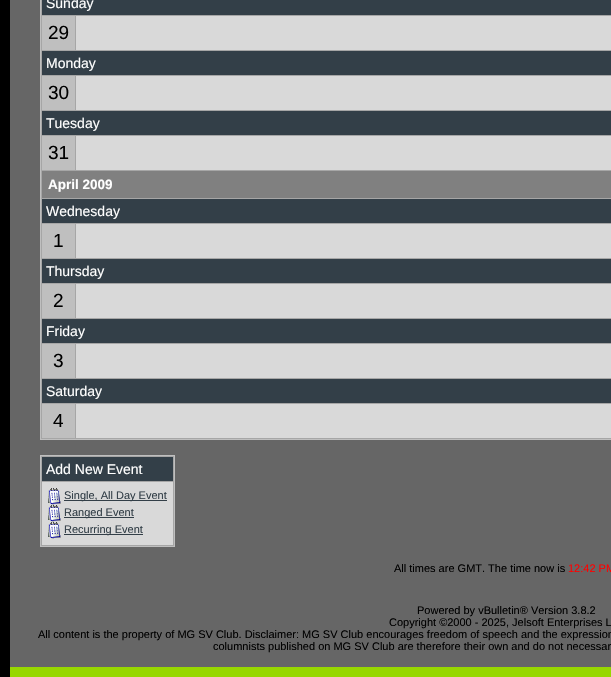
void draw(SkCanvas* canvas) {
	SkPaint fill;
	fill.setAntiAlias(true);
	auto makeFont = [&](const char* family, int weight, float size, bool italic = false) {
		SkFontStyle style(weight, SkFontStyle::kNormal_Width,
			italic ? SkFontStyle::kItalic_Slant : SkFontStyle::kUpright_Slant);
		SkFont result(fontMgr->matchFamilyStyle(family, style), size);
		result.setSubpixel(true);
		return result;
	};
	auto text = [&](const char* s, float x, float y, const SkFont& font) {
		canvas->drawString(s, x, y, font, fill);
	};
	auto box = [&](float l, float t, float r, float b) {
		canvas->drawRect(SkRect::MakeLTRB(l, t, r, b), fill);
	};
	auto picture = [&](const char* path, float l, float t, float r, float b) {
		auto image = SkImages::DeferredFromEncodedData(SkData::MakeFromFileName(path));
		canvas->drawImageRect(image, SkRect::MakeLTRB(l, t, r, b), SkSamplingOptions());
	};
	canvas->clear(0xFF000000);
	fill.setColor(0xFF666666);
	box(10, 0, 611, 667);
	fill.setColor(0xFFA6A6A6);
	canvas->drawRect(SkRect::MakeLTRB(40.5f, -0.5f, 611.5f, 439.5f), fill);
	fill.setStyle(SkPaint::kStroke_Style);
	fill.setStrokeWidth(1);
	fill.setColor(0xFFBFBFBF);
	canvas->drawRect(SkRect::MakeLTRB(40.5f, -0.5f, 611.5f, 439.5f), fill);
	fill.setStyle(SkPaint::kFill_Style);
	fill.setColor(0xFF333F48);
	box(42, 0, 611, 15);
	fill.setColor(0xFFBFBFBF);
	box(42, 16, 75, 50);
	fill.setColor(0xFFD9D9D9);
	box(76, 16, 611, 50);
	fill.setColor(0xFF333F48);
	box(42, 51, 611, 75);
	fill.setColor(0xFFBFBFBF);
	box(42, 76, 75, 110);
	fill.setColor(0xFFD9D9D9);
	box(76, 76, 611, 110);
	fill.setColor(0xFF333F48);
	box(42, 111, 611, 135);
	fill.setColor(0xFFBFBFBF);
	box(42, 136, 75, 170);
	fill.setColor(0xFFD9D9D9);
	box(76, 136, 611, 170);
	fill.setColor(0xFF808080);
	box(42, 171, 611, 198);
	fill.setColor(0xFF333F48);
	box(42, 199, 611, 223);
	fill.setColor(0xFFBFBFBF);
	box(42, 224, 75, 258);
	fill.setColor(0xFFD9D9D9);
	box(76, 224, 611, 258);
	fill.setColor(0xFF333F48);
	box(42, 259, 611, 283);
	fill.setColor(0xFFBFBFBF);
	box(42, 284, 75, 318);
	fill.setColor(0xFFD9D9D9);
	box(76, 284, 611, 318);
	fill.setColor(0xFF333F48);
	box(42, 319, 611, 343);
	fill.setColor(0xFFBFBFBF);
	box(42, 344, 75, 378);
	fill.setColor(0xFFD9D9D9);
	box(76, 344, 611, 378);
	fill.setColor(0xFF333F48);
	box(42, 379, 611, 403);
	fill.setColor(0xFFBFBFBF);
	box(42, 404, 75, 438);
	fill.setColor(0xFFD9D9D9);
	box(76, 404, 611, 438);
	fill.setColor(0xFFA6A6A6);
	canvas->drawRect(SkRect::MakeLTRB(40.5f, 455.5f, 174.5f, 546.5f), fill);
	fill.setStyle(SkPaint::kStroke_Style);
	fill.setColor(0xFFBFBFBF);
	canvas->drawRect(SkRect::MakeLTRB(40.5f, 455.5f, 174.5f, 546.5f), fill);
	fill.setStyle(SkPaint::kFill_Style);
	fill.setColor(0xFF333F48);
	box(42, 457, 173, 481);
	fill.setColor(0xFFD9D9D9);
	box(42, 482, 173, 545);
	picture("image0.png", 48, 488, 61, 505);
	fill.setColor(0xFF333F48);
	box(64, 500, 167, 501);
	picture("image0.png", 48, 505, 61, 522);
	box(64, 517, 134, 518);
	picture("image0.png", 48, 522, 61, 539);
	box(64, 534, 143, 535);
	fill.setColor(0xFF97D700);
	box(10, 667, 611, 677);
	auto font1 = makeFont("Liberation Sans", 400, 14);
	fill.setColor(0xFFFFFFFF);
	text("Sunday", 46, 8, font1);
	auto font2 = makeFont("Liberation Sans", 400, 19);
	fill.setColor(0xFF000000);
	text("29", 48, 39, font2);
	fill.setColor(0xFFFFFFFF);
	text("Monday", 46, 68, font1);
	fill.setColor(0xFF000000);
	text("30", 48, 99, font2);
	fill.setColor(0xFFFFFFFF);
	text("Tuesday", 46, 128, font1);
	fill.setColor(0xFF000000);
	text("31", 48, 159, font2);
	auto font3 = makeFont("Liberation Sans", 700, 13.5f);
	fill.setColor(0xFFFFFFFF);
	text("April 2009", 48, 189, font3);
	text("Wednesday", 46, 216, font1);
	fill.setColor(0xFF000000);
	text("1", 53, 247, font2);
	fill.setColor(0xFFFFFFFF);
	text("Thursday", 46, 276, font1);
	fill.setColor(0xFF000000);
	text("2", 53, 307, font2);
	fill.setColor(0xFFFFFFFF);
	text("Friday", 46, 336, font1);
	fill.setColor(0xFF000000);
	text("3", 53, 367, font2);
	fill.setColor(0xFFFFFFFF);
	text("Saturday", 46, 396, font1);
	fill.setColor(0xFF000000);
	text("4", 53, 427, font2);
	fill.setColor(0xFFFFFFFF);
	text("Add New Event", 46, 474, font1);
	auto font4 = makeFont("Liberation Sans", 400, 11);
	fill.setColor(0xFF333F48);
	text("Single, All Day Event", 64, 499, font4);
	text("Ranged Event", 64, 516, font4);
	text("Recurring Event", 64, 533, font4);
	fill.setColor(0xFF000000);
	text("All times are GMT. The time now is", 394, 572, font4);
	fill.setColor(0xFFFF0000);
	text("12:42 PM", 568, 572, font4);
	fill.setColor(0xFF000000);
	text("Powered by vBulletin® Version 3.8.2", 417, 614, font4);
	text("Copyright ©2000 - 2025, Jelsoft Enterprises L", 389, 626, font4);
	text("All content is the property of MG SV Club. Disclaimer: MG SV Club encourages freedom of speech and the expression", 38, 638, font4);
	text("columnists published on MG SV Club are therefore their own and do not necessar", 213, 650, font4);
}
